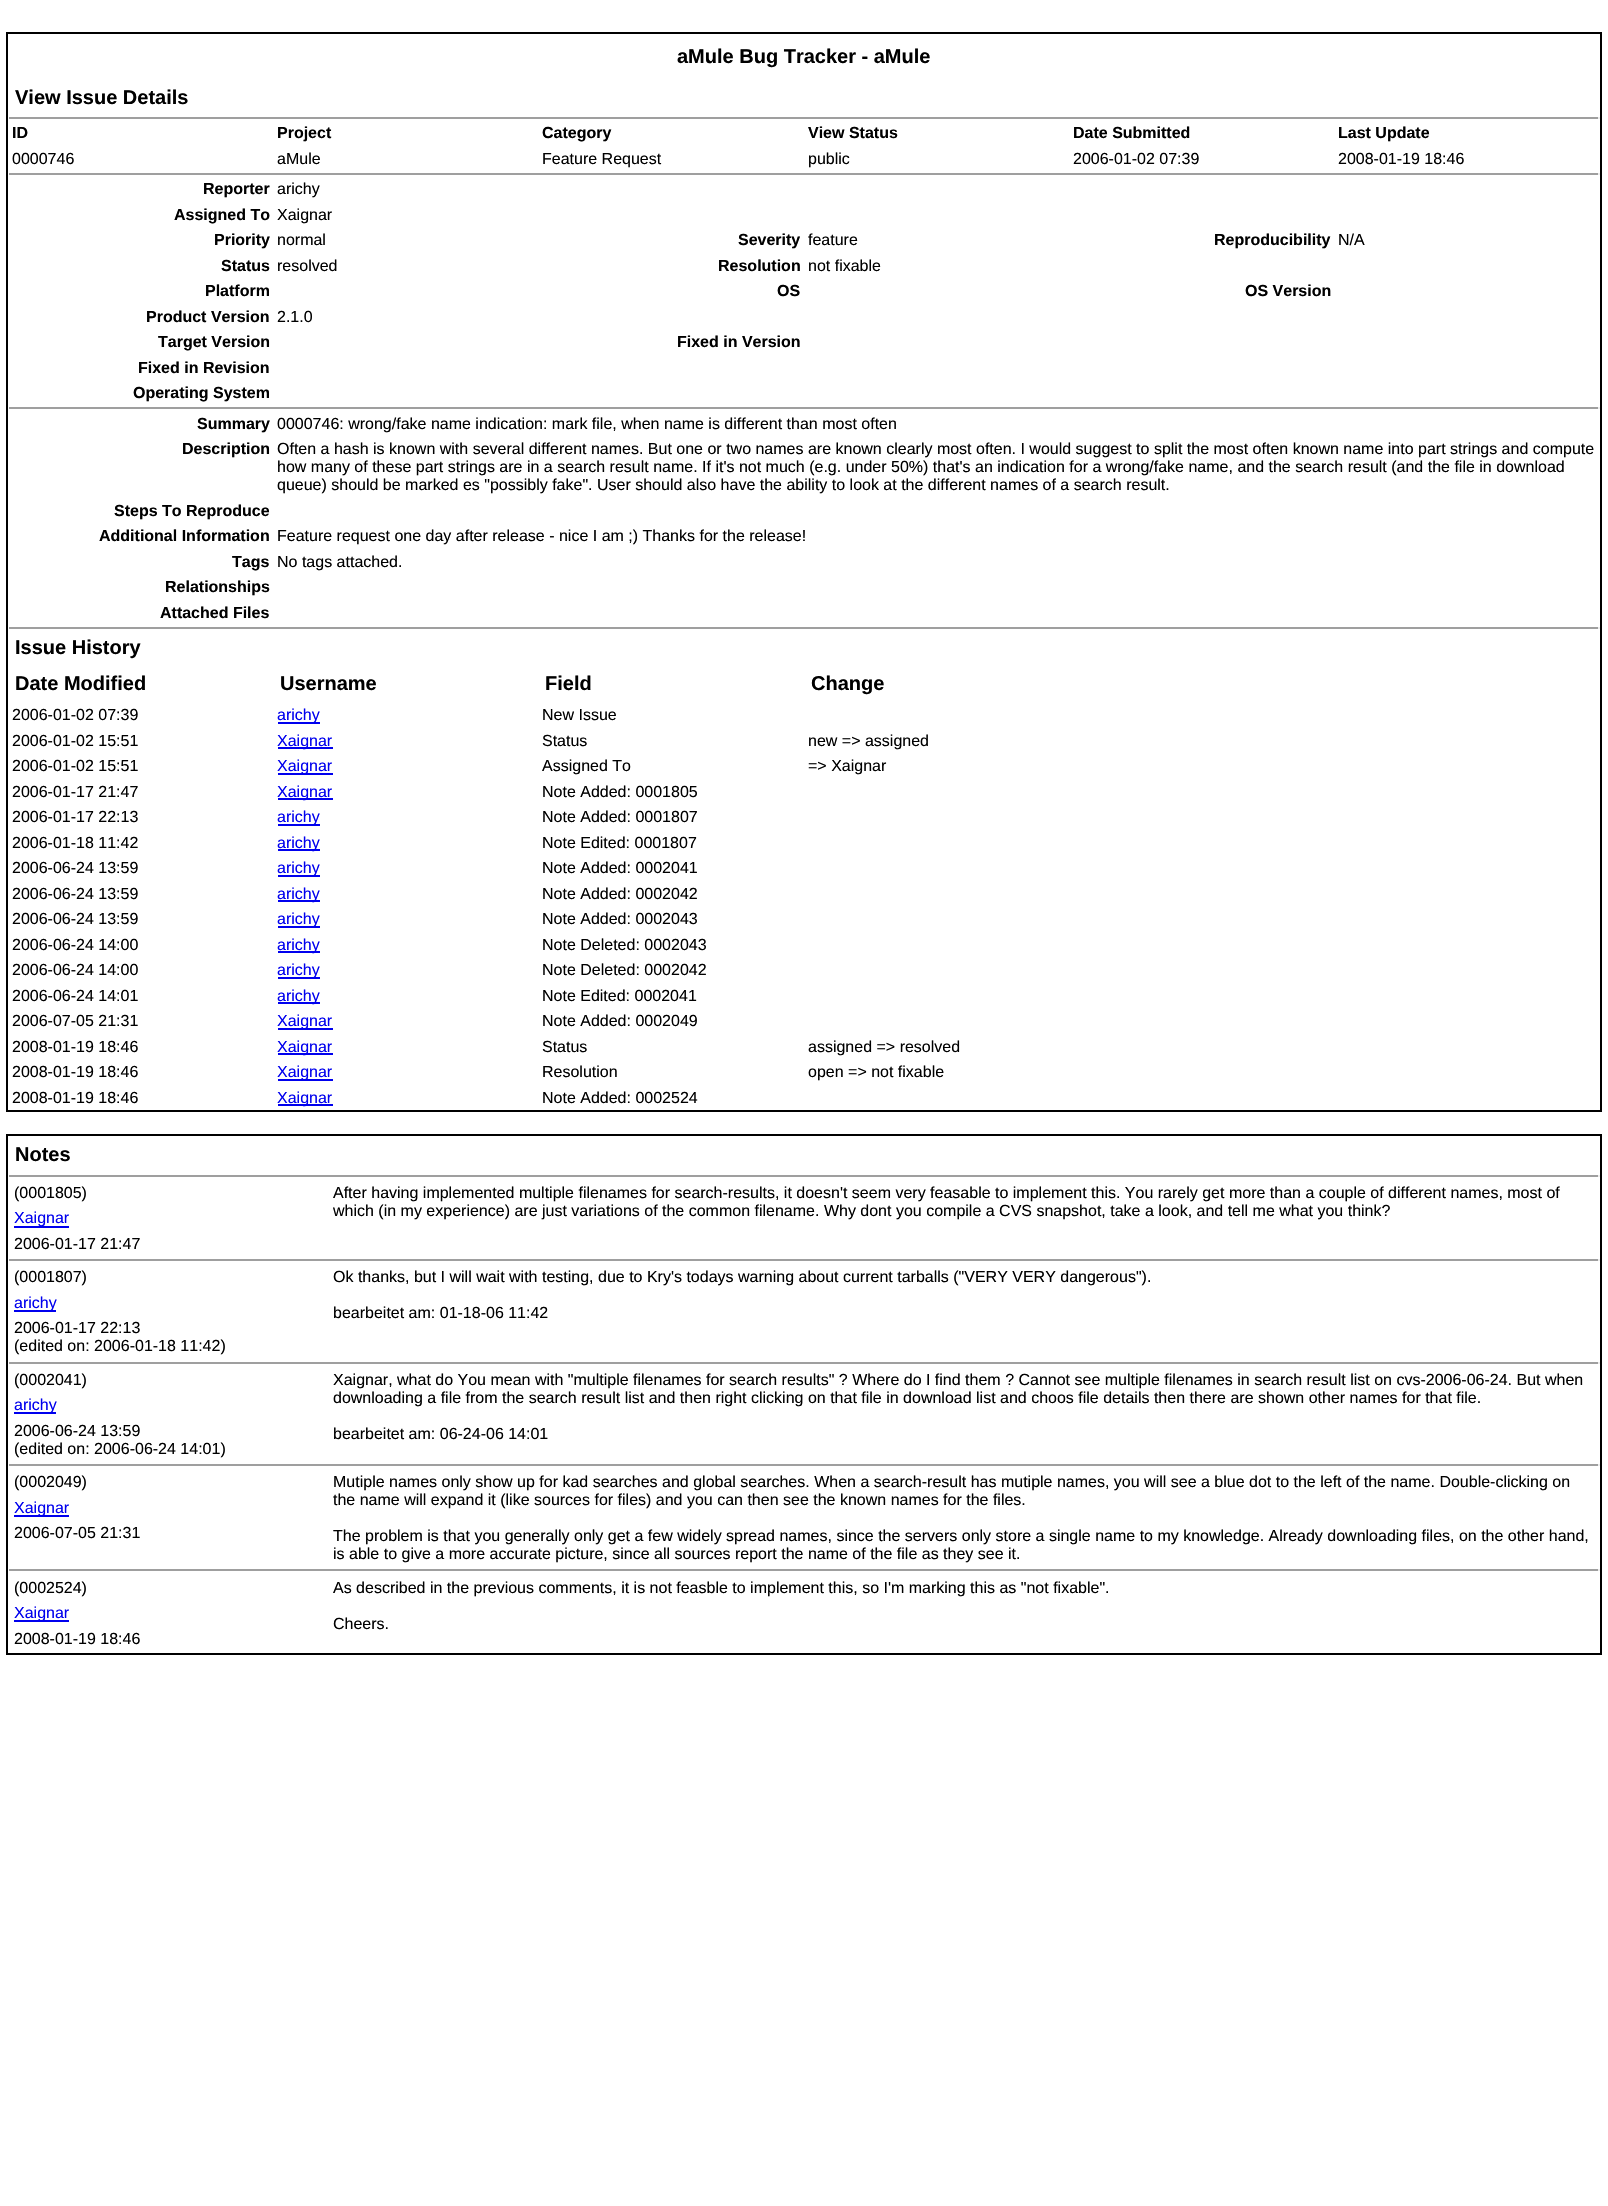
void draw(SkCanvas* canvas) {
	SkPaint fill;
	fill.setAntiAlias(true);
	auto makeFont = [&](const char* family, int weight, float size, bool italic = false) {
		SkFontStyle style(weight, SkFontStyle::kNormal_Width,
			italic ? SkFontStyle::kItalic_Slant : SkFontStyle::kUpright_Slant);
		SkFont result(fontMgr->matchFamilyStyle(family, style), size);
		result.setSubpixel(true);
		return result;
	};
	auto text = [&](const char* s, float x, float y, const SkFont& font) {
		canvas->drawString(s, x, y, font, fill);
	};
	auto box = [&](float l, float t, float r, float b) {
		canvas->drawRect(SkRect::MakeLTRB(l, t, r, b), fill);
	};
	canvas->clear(0xFFFFFFFF);
	fill.setStyle(SkPaint::kStroke_Style);
	fill.setStrokeWidth(2);
	fill.setColor(0xFF000000);
	canvas->drawRect(SkRect::MakeLTRB(7, 33, 1601, 1111), fill);
	fill.setStyle(SkPaint::kFill_Style);
	fill.setColor(0xFF9F9F9F);
	box(9, 117, 1599, 119);
	fill.setColor(0xFFEEEEEE);
	box(1598, 117, 1600, 119);
	fill.setColor(0xFF9F9F9F);
	box(9, 173, 1599, 175);
	fill.setColor(0xFFEEEEEE);
	box(1598, 173, 1600, 175);
	fill.setColor(0xFF9F9F9F);
	box(9, 407, 1599, 409);
	fill.setColor(0xFFEEEEEE);
	box(1598, 407, 1600, 409);
	fill.setColor(0xFF9F9F9F);
	box(9, 627, 1599, 629);
	fill.setColor(0xFFEEEEEE);
	box(1598, 627, 1600, 629);
	fill.setColor(0xFF0000EE);
	box(278, 722, 320, 724);
	box(278, 747, 333, 749);
	box(278, 773, 333, 775);
	box(278, 798, 333, 800);
	box(278, 824, 320, 826);
	box(278, 849, 320, 851);
	box(278, 875, 320, 877);
	box(278, 900, 320, 902);
	box(278, 926, 320, 928);
	box(278, 951, 320, 953);
	box(278, 977, 320, 979);
	box(278, 1002, 320, 1004);
	box(278, 1028, 333, 1030);
	box(278, 1053, 333, 1055);
	box(278, 1079, 333, 1081);
	box(278, 1104, 333, 1106);
	fill.setStyle(SkPaint::kStroke_Style);
	fill.setColor(0xFF000000);
	canvas->drawRect(SkRect::MakeLTRB(7, 1135, 1601, 1654), fill);
	fill.setStyle(SkPaint::kFill_Style);
	fill.setColor(0xFF9F9F9F);
	box(9, 1175, 1599, 1177);
	fill.setColor(0xFFEEEEEE);
	box(1598, 1175, 1600, 1177);
	fill.setColor(0xFF0000EE);
	box(14, 1226, 69, 1228);
	fill.setColor(0xFF9F9F9F);
	box(9, 1259, 1599, 1261);
	fill.setColor(0xFFEEEEEE);
	box(1598, 1259, 1600, 1261);
	fill.setColor(0xFF0000EE);
	box(14, 1310, 56, 1312);
	fill.setColor(0xFF9F9F9F);
	box(9, 1362, 1599, 1364);
	fill.setColor(0xFFEEEEEE);
	box(1598, 1362, 1600, 1364);
	fill.setColor(0xFF0000EE);
	box(14, 1412, 56, 1414);
	fill.setColor(0xFF9F9F9F);
	box(9, 1464, 1599, 1466);
	fill.setColor(0xFFEEEEEE);
	box(1598, 1464, 1600, 1466);
	fill.setColor(0xFF0000EE);
	box(14, 1515, 69, 1517);
	fill.setColor(0xFF9F9F9F);
	box(9, 1569, 1599, 1571);
	fill.setColor(0xFFEEEEEE);
	box(1598, 1569, 1600, 1571);
	fill.setColor(0xFF0000EE);
	box(14, 1620, 69, 1622);
	auto font1 = makeFont("Liberation Sans", 700, 20);
	fill.setColor(0xFF000000);
	text("aMule Bug Tracker - aMule", 677, 63, font1);
	text("View Issue Details", 15, 104, font1);
	auto font2 = makeFont("Liberation Sans", 700, 16);
	text("ID", 12, 138, font2);
	text("Project", 277, 138, font2);
	text("Category", 542, 138, font2);
	text("View Status", 808, 138, font2);
	text("Date Submitted", 1073, 138, font2);
	text("Last Update", 1338, 138, font2);
	auto font3 = makeFont("Liberation Sans", 400, 16);
	text("0000746", 12, 164, font3);
	text("aMule", 277, 164, font3);
	text("Feature Request", 542, 164, font3);
	text("public", 808, 164, font3);
	text("2006-01-02 07:39", 1073, 164, font3);
	text("2008-01-19 18:46", 1338, 164, font3);
	text("Reporter", 203, 194, font2);
	text("arichy", 277, 194, font3);
	text("Assigned To", 174, 220, font2);
	text("Xaignar", 277, 220, font3);
	text("Priority", 214, 245, font2);
	text("normal", 277, 245, font3);
	text("Severity", 738, 245, font2);
	text("feature", 808, 245, font3);
	text("Reproducibility", 1214, 245, font2);
	text("N/A", 1338, 245, font3);
	text("Status", 221, 271, font2);
	text("resolved", 277, 271, font3);
	text("Resolution", 718, 271, font2);
	text("not fixable", 808, 271, font3);
	text("Platform", 205, 296, font2);
	text("OS", 777, 296, font2);
	text("OS Version", 1245, 296, font2);
	text("Product Version", 146, 322, font2);
	text("2.1.0", 277, 322, font3);
	text("Target Version", 158, 347, font2);
	text("Fixed in Version", 677, 347, font2);
	text("Fixed in Revision", 138, 373, font2);
	text("Operating System", 133, 398, font2);
	text("Summary", 197, 429, font2);
	text("0000746: wrong/fake name indication: mark file, when name is different than most often", 277, 429, font3);
	text("Description", 182, 454, font2);
	text("Often a hash is known with several different names. But one or two names are known clearly most often. I would suggest to split the most often known name into part strings and compute", 277, 454, font3);
	text("how many of these part strings are in a search result name. If it's not much (e.g. under 50%) that's an indication for a wrong/fake name, and the search result (and the file in download", 277, 472, font3);
	text("queue) should be marked es \"possibly fake\". User should also have the ability to look at the different names of a search result.", 277, 490, font3);
	text("Steps To Reproduce", 114, 516, font2);
	text("Additional Information", 99, 541, font2);
	text("Feature request one day after release - nice I am ;) Thanks for the release!", 277, 541, font3);
	text("Tags", 232, 567, font2);
	text("No tags attached.", 277, 567, font3);
	text("Relationships", 165, 592, font2);
	text("Attached Files", 160, 618, font2);
	text("Issue History", 15, 654, font1);
	text("Date Modified", 15, 690, font1);
	text("Username", 280, 690, font1);
	text("Field", 545, 690, font1);
	text("Change", 811, 690, font1);
	text("2006-01-02 07:39", 12, 720, font3);
	fill.setColor(0xFF0000EE);
	text("arichy", 277, 720, font3);
	fill.setColor(0xFF000000);
	text("New Issue", 542, 720, font3);
	text("2006-01-02 15:51", 12, 746, font3);
	fill.setColor(0xFF0000EE);
	text("Xaignar", 277, 746, font3);
	fill.setColor(0xFF000000);
	text("Status", 542, 746, font3);
	text("new => assigned", 808, 746, font3);
	text("2006-01-02 15:51", 12, 771, font3);
	fill.setColor(0xFF0000EE);
	text("Xaignar", 277, 771, font3);
	fill.setColor(0xFF000000);
	text("Assigned To", 542, 771, font3);
	text("=> Xaignar", 808, 771, font3);
	text("2006-01-17 21:47", 12, 797, font3);
	fill.setColor(0xFF0000EE);
	text("Xaignar", 277, 797, font3);
	fill.setColor(0xFF000000);
	text("Note Added: 0001805", 542, 797, font3);
	text("2006-01-17 22:13", 12, 822, font3);
	fill.setColor(0xFF0000EE);
	text("arichy", 277, 822, font3);
	fill.setColor(0xFF000000);
	text("Note Added: 0001807", 542, 822, font3);
	text("2006-01-18 11:42", 12, 848, font3);
	fill.setColor(0xFF0000EE);
	text("arichy", 277, 848, font3);
	fill.setColor(0xFF000000);
	text("Note Edited: 0001807", 542, 848, font3);
	text("2006-06-24 13:59", 12, 873, font3);
	fill.setColor(0xFF0000EE);
	text("arichy", 277, 873, font3);
	fill.setColor(0xFF000000);
	text("Note Added: 0002041", 542, 873, font3);
	text("2006-06-24 13:59", 12, 899, font3);
	fill.setColor(0xFF0000EE);
	text("arichy", 277, 899, font3);
	fill.setColor(0xFF000000);
	text("Note Added: 0002042", 542, 899, font3);
	text("2006-06-24 13:59", 12, 924, font3);
	fill.setColor(0xFF0000EE);
	text("arichy", 277, 924, font3);
	fill.setColor(0xFF000000);
	text("Note Added: 0002043", 542, 924, font3);
	text("2006-06-24 14:00", 12, 950, font3);
	fill.setColor(0xFF0000EE);
	text("arichy", 277, 950, font3);
	fill.setColor(0xFF000000);
	text("Note Deleted: 0002043", 542, 950, font3);
	text("2006-06-24 14:00", 12, 975, font3);
	fill.setColor(0xFF0000EE);
	text("arichy", 277, 975, font3);
	fill.setColor(0xFF000000);
	text("Note Deleted: 0002042", 542, 975, font3);
	text("2006-06-24 14:01", 12, 1001, font3);
	fill.setColor(0xFF0000EE);
	text("arichy", 277, 1001, font3);
	fill.setColor(0xFF000000);
	text("Note Edited: 0002041", 542, 1001, font3);
	text("2006-07-05 21:31", 12, 1026, font3);
	fill.setColor(0xFF0000EE);
	text("Xaignar", 277, 1026, font3);
	fill.setColor(0xFF000000);
	text("Note Added: 0002049", 542, 1026, font3);
	text("2008-01-19 18:46", 12, 1052, font3);
	fill.setColor(0xFF0000EE);
	text("Xaignar", 277, 1052, font3);
	fill.setColor(0xFF000000);
	text("Status", 542, 1052, font3);
	text("assigned => resolved", 808, 1052, font3);
	text("2008-01-19 18:46", 12, 1077, font3);
	fill.setColor(0xFF0000EE);
	text("Xaignar", 277, 1077, font3);
	fill.setColor(0xFF000000);
	text("Resolution", 542, 1077, font3);
	text("open => not fixable", 808, 1077, font3);
	text("2008-01-19 18:46", 12, 1103, font3);
	fill.setColor(0xFF0000EE);
	text("Xaignar", 277, 1103, font3);
	fill.setColor(0xFF000000);
	text("Note Added: 0002524", 542, 1103, font3);
	text("Notes", 15, 1161, font1);
	text("(0001805)", 14, 1198, font3);
	fill.setColor(0xFF0000EE);
	text("Xaignar", 14, 1223, font3);
	fill.setColor(0xFF000000);
	text("2006-01-17 21:47", 14, 1249, font3);
	text("After having implemented multiple filenames for search-results, it doesn't seem very feasable to implement this. You rarely get more than a couple of different names, most of", 333, 1198, font3);
	text("which (in my experience) are just variations of the common filename. Why dont you compile a CVS snapshot, take a look, and tell me what you think?", 333, 1216, font3);
	text("(0001807)", 14, 1282, font3);
	fill.setColor(0xFF0000EE);
	text("arichy", 14, 1308, font3);
	fill.setColor(0xFF000000);
	text("2006-01-17 22:13", 14, 1333, font3);
	text("(edited on: 2006-01-18 11:42)", 14, 1351, font3);
	text("Ok thanks, but I will wait with testing, due to Kry's todays warning about current tarballs (\"VERY VERY dangerous\").", 333, 1282, font3);
	text("bearbeitet am: 01-18-06 11:42", 333, 1318, font3);
	text("(0002041)", 14, 1385, font3);
	fill.setColor(0xFF0000EE);
	text("arichy", 14, 1410, font3);
	fill.setColor(0xFF000000);
	text("2006-06-24 13:59", 14, 1436, font3);
	text("(edited on: 2006-06-24 14:01)", 14, 1454, font3);
	text("Xaignar, what do You mean with \"multiple filenames for search results\" ? Where do I find them ? Cannot see multiple filenames in search result list on cvs-2006-06-24. But when", 333, 1385, font3);
	text("downloading a file from the search result list and then right clicking on that file in download list and choos file details then there are shown other names for that file.", 333, 1403, font3);
	text("bearbeitet am: 06-24-06 14:01", 333, 1439, font3);
	text("(0002049)", 14, 1487, font3);
	fill.setColor(0xFF0000EE);
	text("Xaignar", 14, 1513, font3);
	fill.setColor(0xFF000000);
	text("2006-07-05 21:31", 14, 1538, font3);
	text("Mutiple names only show up for kad searches and global searches. When a search-result has mutiple names, you will see a blue dot to the left of the name. Double-clicking on", 333, 1487, font3);
	text("the name will expand it (like sources for files) and you can then see the known names for the files.", 333, 1505, font3);
	text("The problem is that you generally only get a few widely spread names, since the servers only store a single name to my knowledge. Already downloading files, on the other hand,", 333, 1541, font3);
	text("is able to give a more accurate picture, since all sources report the name of the file as they see it.", 333, 1559, font3);
	text("(0002524)", 14, 1593, font3);
	fill.setColor(0xFF0000EE);
	text("Xaignar", 14, 1618, font3);
	fill.setColor(0xFF000000);
	text("2008-01-19 18:46", 14, 1644, font3);
	text("As described in the previous comments, it is not feasble to implement this, so I'm marking this as \"not fixable\".", 333, 1593, font3);
	text("Cheers.", 333, 1629, font3);
}
